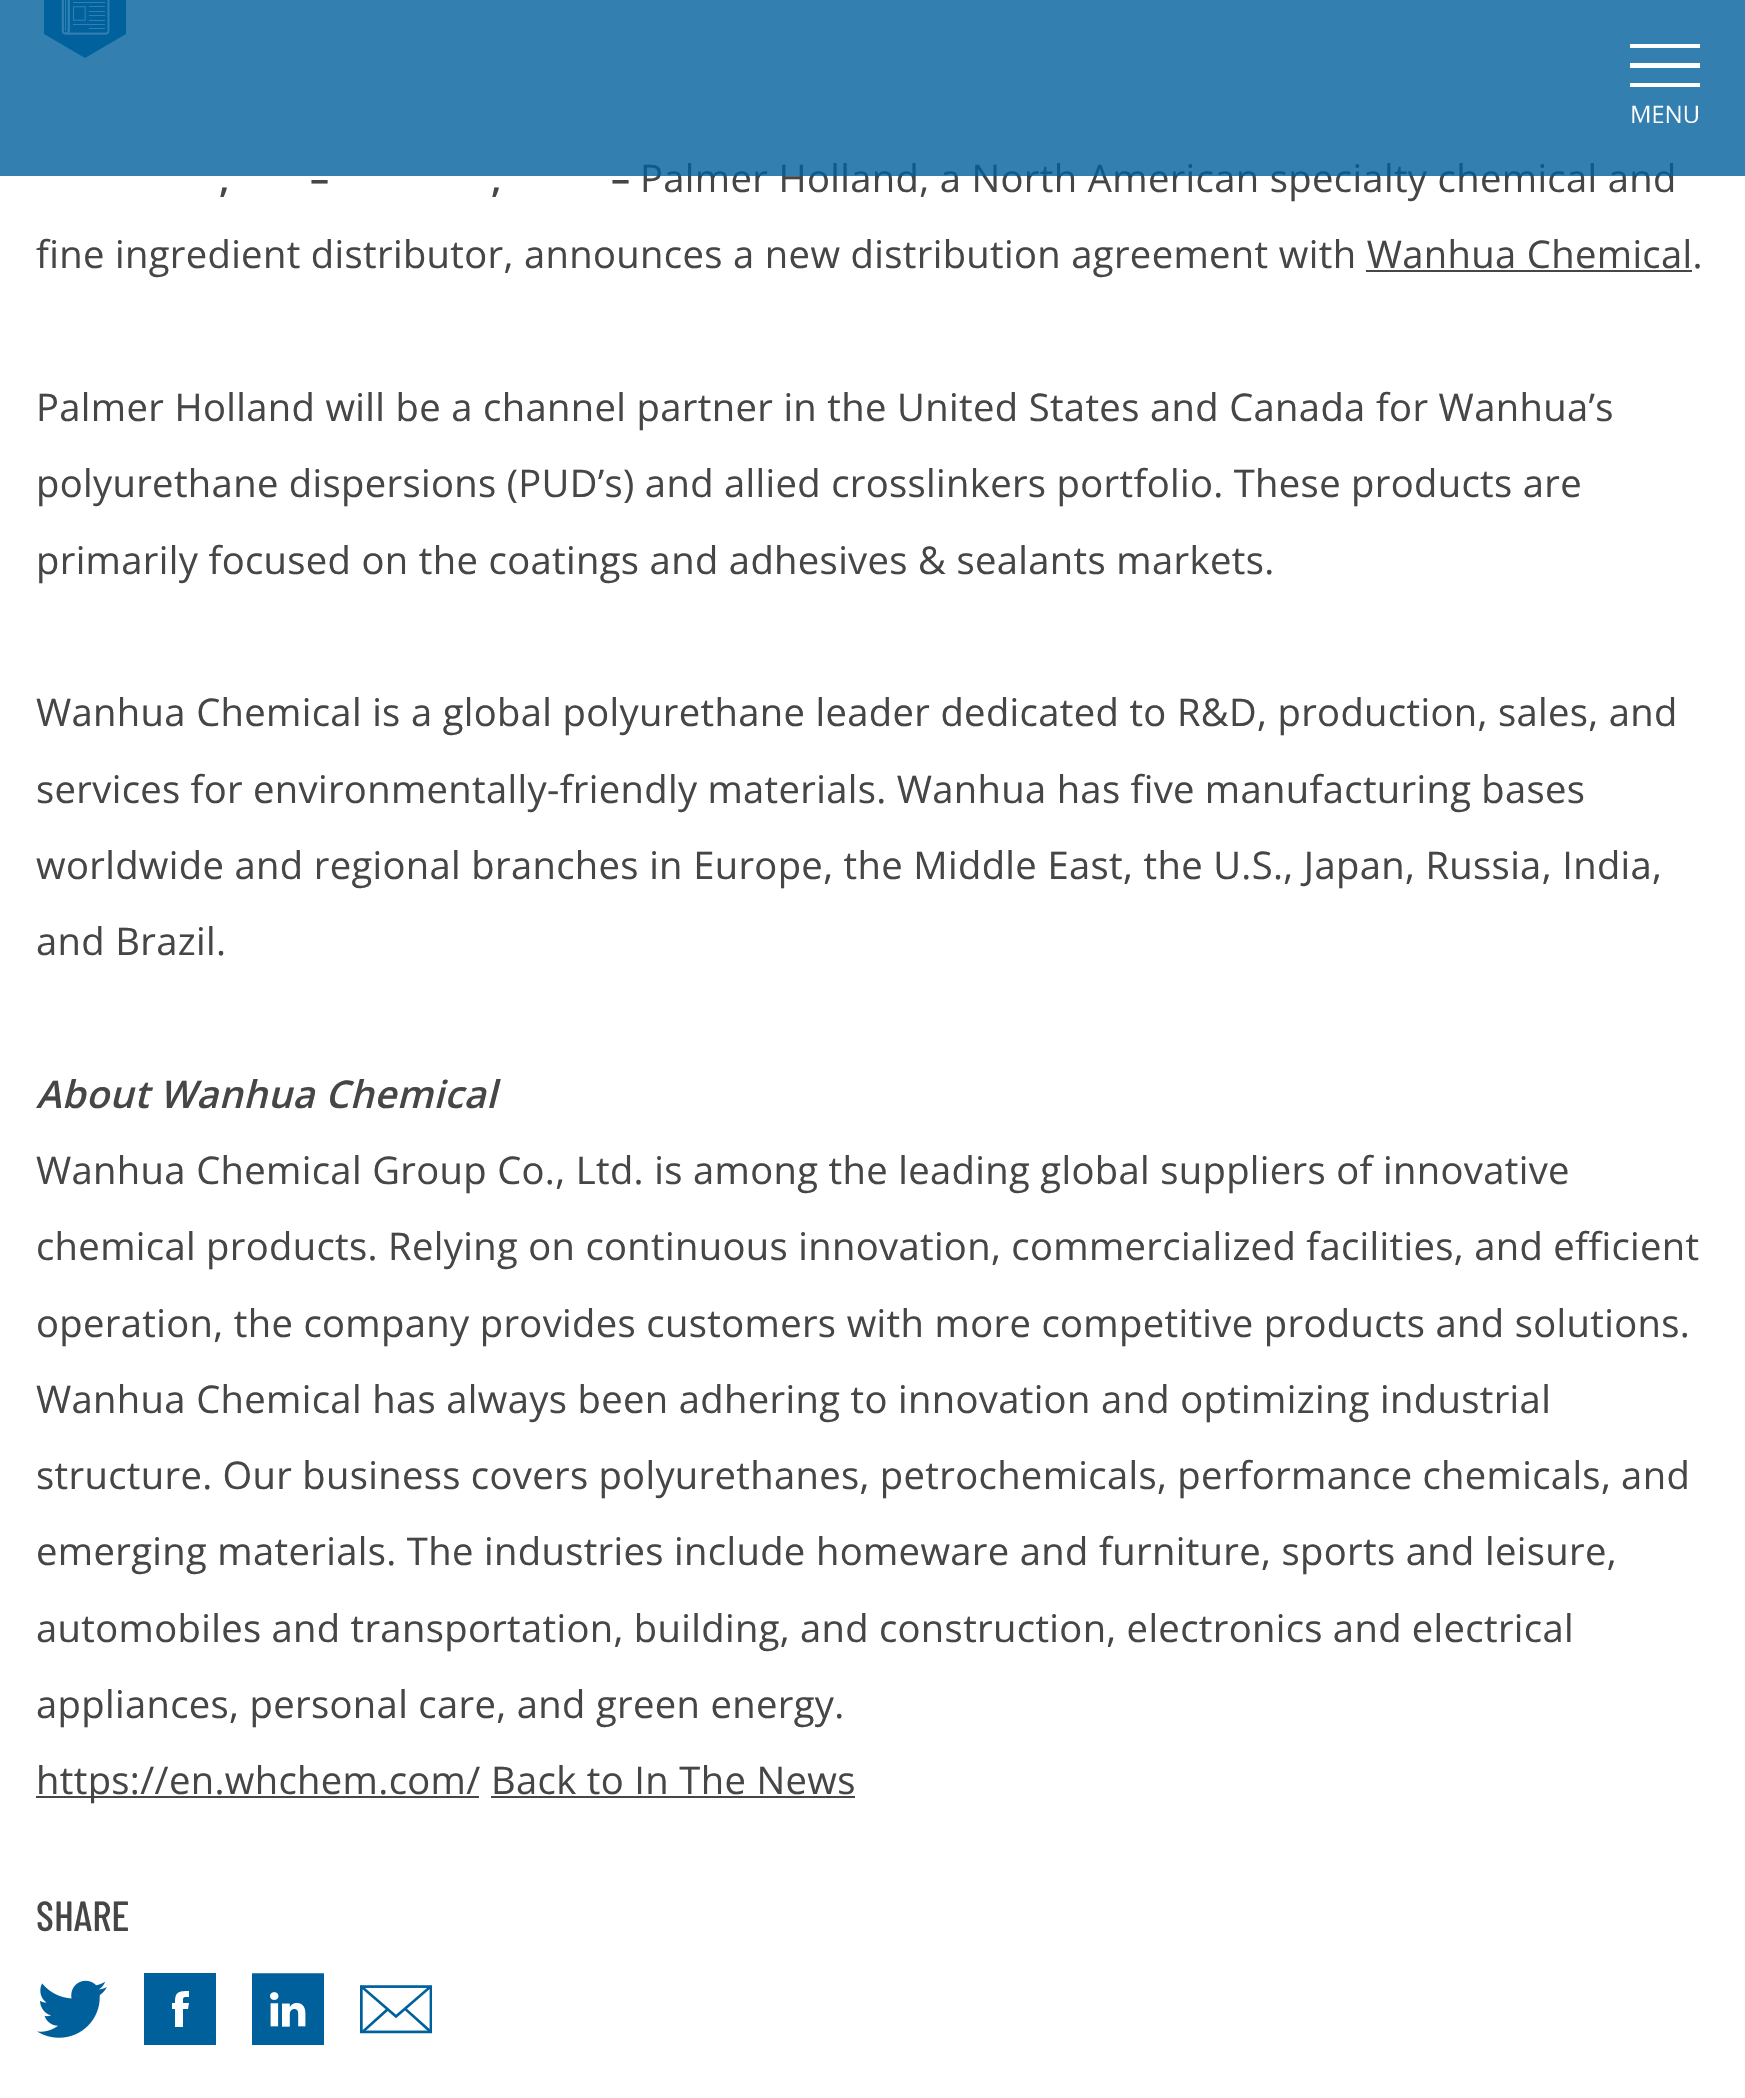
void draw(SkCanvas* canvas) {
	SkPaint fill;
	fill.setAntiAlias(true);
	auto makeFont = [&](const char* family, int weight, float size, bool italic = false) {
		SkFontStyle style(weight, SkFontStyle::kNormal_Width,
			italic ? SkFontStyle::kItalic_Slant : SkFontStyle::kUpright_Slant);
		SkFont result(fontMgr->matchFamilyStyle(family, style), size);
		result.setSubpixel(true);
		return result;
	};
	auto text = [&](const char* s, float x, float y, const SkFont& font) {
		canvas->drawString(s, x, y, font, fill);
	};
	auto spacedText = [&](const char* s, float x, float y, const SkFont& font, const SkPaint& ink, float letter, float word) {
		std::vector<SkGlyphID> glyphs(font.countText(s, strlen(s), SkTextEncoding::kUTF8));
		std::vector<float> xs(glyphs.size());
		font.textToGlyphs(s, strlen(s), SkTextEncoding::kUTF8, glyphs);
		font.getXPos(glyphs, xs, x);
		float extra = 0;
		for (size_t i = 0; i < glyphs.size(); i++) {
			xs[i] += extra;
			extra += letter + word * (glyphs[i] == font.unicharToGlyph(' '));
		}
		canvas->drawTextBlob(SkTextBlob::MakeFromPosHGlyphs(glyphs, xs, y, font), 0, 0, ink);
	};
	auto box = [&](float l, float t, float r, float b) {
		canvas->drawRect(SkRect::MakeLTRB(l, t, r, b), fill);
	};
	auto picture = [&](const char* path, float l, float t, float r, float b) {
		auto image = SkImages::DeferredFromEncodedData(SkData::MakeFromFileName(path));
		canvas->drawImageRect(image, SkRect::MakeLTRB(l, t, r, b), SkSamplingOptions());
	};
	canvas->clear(0xFFFFFFFF);
	fill.setColor(0xFF00609C);
	canvas->drawPath(SkPathBuilder().moveTo(85, -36).lineTo(126, -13).lineTo(126, 34).lineTo(85, 58).lineTo(44, 34).lineTo(44, -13).close().detach(), fill);
	picture("image1.png", 61, 0, 110, 35);
	fill.setColor(0xFF464646);
	box(1366, 270, 1692, 272);
	box(36, 1796, 479, 1798);
	box(491, 1796, 855, 1798);
	picture("image2.png", 37, 1980, 107, 2038);
	fill.setColor(0xFF00609C);
	canvas->drawPath(SkPathBuilder().moveTo(144, 1973).lineTo(144, 2045).lineTo(216, 2045).lineTo(216, 1973).close().moveTo(188, 2009).lineTo(183, 2009).lineTo(183, 2027).lineTo(175, 2027).lineTo(175, 2009).lineTo(172, 2009).lineTo(172, 2003).lineTo(175, 2003).cubicTo(175, 1992, 178, 1991, 189, 1991).lineTo(189, 1997).cubicTo(183, 1997, 183, 1996, 183, 2003).lineTo(189, 2003).close().detach(), fill);
	picture("image3.png", 252, 1973, 324, 2045);
	picture("image4.png", 360, 1985, 432, 2034);
	auto font1 = makeFont("Open Sans", 600, 38.15f);
	fill.setColor(0xFF464646);
	spacedText("–", 310, 192, font1, fill, 0.35f, 0);
	spacedText("–", 611, 192, font1, fill, 0.35f, 0);
	auto font2 = makeFont("Open Sans", 400, 38.15f);
	spacedText("Palmer Holland, a North American specialty chemical and", 640, 192, font2, fill, 0.35f, 0);
	fill.setColor(0xCC00609C);
	box(0, 0, 1745, 176);
	picture("image0.png", 1630, 44, 1700, 123);
	fill.setColor(0xFF464646);
	spacedText(",", 219, 192, font1, fill, 0.35f, 0);
	spacedText(",", 491, 192, font1, fill, 0.35f, 0);
	spacedText("fine ingredient distributor, announces a new distribution agreement with Wanhua Chemical.", 36, 268, font2, fill, 0.35f, 0);
	spacedText("Palmer Holland will be a channel partner in the United States and Canada for Wanhua’s", 36, 421, font2, fill, 0.35f, 0);
	spacedText("polyurethane dispersions (PUD’s) and allied crosslinkers portfolio. These products are", 36, 497, font2, fill, 0.35f, -0.1f);
	spacedText("primarily focused on the coatings and adhesives & sealants markets.", 36, 574, font2, fill, 0.35f, 0);
	spacedText("Wanhua Chemical is a global polyurethane leader dedicated to R&D, production, sales, and", 36, 726, font2, fill, 0.35f, 0);
	spacedText("services for environmentally-friendly materials. Wanhua has five manufacturing bases", 36, 803, font2, fill, 0.35f, -0.25f);
	spacedText("worldwide and regional branches in Europe, the Middle East, the U.S., Japan, Russia, India,", 36, 879, font2, fill, 0.35f, 0);
	spacedText("and Brazil.", 36, 955, font2, fill, 0.35f, 0);
	auto font3 = makeFont("Open Sans", 600, 38.15f, true);
	spacedText("About Wanhua Chemical", 36, 1108, font3, fill, 0.35f, 0);
	spacedText("Wanhua Chemical Group Co., Ltd. is among the leading global suppliers of innovative", 36, 1184, font2, fill, 0.35f, 0);
	spacedText("chemical products. Relying on continuous innovation, commercialized facilities, and efficient", 36, 1260, font2, fill, 0.35f, -0.1f);
	spacedText("operation, the company provides customers with more competitive products and solutions.", 36, 1337, font2, fill, 0.35f, 0);
	spacedText("Wanhua Chemical has always been adhering to innovation and optimizing industrial", 36, 1413, font2, fill, 0.35f, 0);
	spacedText("structure. Our business covers polyurethanes, petrochemicals, performance chemicals, and", 36, 1489, font2, fill, 0.35f, -0.25f);
	spacedText("emerging materials. The industries include homeware and furniture, sports and leisure,", 36, 1565, font2, fill, 0.35f, 0);
	spacedText("automobiles and transportation, building, and construction, electronics and electrical", 36, 1642, font2, fill, 0.35f, -0.25f);
	spacedText("appliances, personal care, and green energy.", 36, 1718, font2, fill, 0.35f, 0);
	spacedText("https://en.whchem.com/", 36, 1794, font2, fill, 0.35f, 0);
	spacedText("Back to In The News", 491, 1794, font2, fill, 0.35f, 0);
	auto font4 = makeFont("Barlow Condensed", 500, 42);
	text("SHARE", 36, 1931, font4);
}
